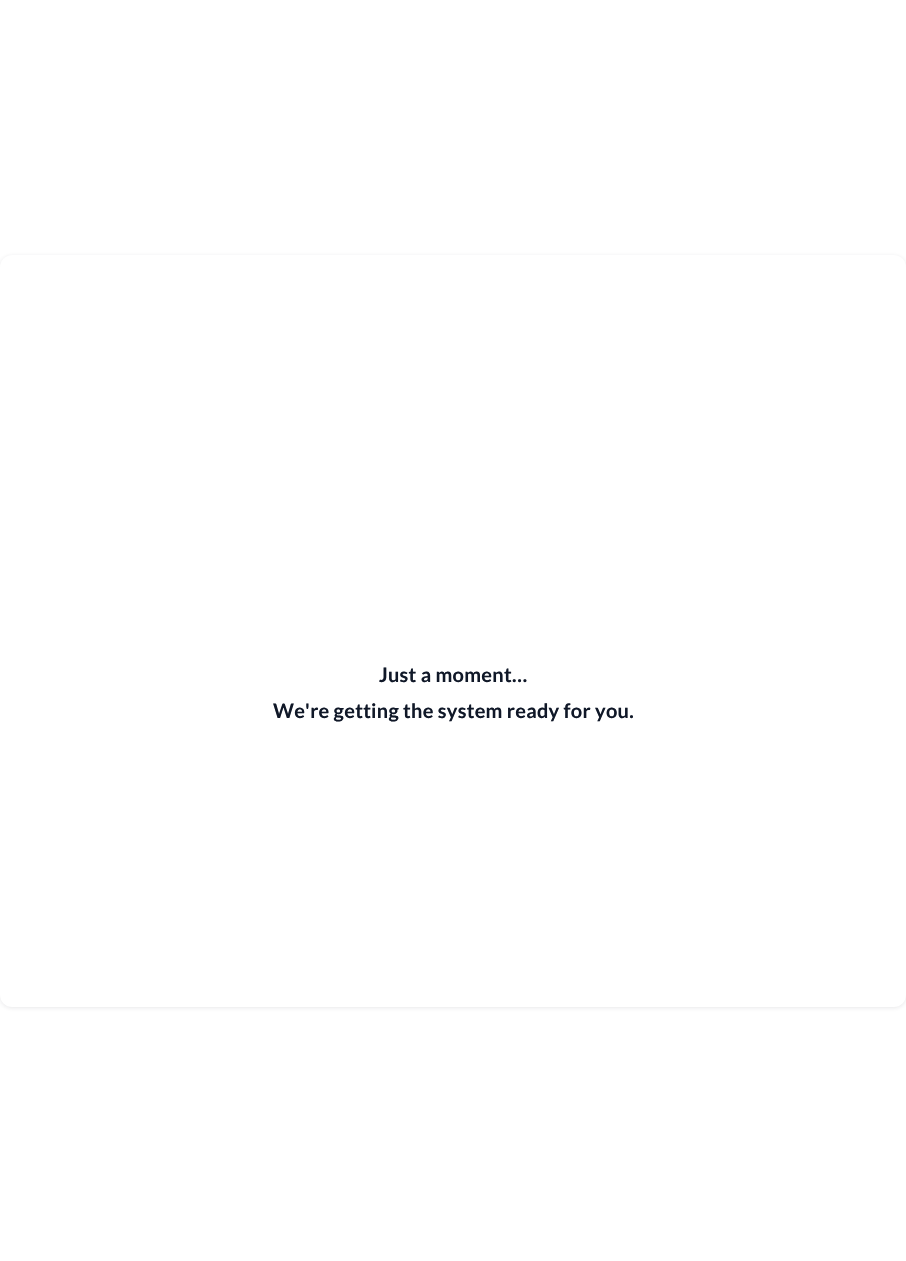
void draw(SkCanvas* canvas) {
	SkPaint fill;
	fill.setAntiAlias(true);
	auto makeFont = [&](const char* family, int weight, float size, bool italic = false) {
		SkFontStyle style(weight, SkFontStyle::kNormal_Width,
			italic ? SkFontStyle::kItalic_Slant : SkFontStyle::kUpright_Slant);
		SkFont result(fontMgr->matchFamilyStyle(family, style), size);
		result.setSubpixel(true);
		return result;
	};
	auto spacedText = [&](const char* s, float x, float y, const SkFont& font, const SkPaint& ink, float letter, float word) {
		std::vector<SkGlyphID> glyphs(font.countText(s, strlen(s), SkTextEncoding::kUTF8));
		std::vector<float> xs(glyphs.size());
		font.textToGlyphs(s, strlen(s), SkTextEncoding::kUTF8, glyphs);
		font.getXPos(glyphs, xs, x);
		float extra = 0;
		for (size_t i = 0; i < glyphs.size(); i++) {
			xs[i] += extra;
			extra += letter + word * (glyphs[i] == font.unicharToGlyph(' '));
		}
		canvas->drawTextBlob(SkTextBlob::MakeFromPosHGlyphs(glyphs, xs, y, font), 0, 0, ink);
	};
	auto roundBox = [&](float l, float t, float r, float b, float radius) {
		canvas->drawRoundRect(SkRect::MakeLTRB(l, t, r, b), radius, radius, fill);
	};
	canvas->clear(0xFFFFFFFF);
	fill.setColor(0x1A212134);
	fill.setMaskFilter(SkMaskFilter::MakeBlur(kNormal_SkBlurStyle, 2));
	canvas->drawRoundRect(SkRect::MakeLTRB(0, 256, 906, 1008), 12, 12, fill);
	fill.setMaskFilter(nullptr);
	fill.setColor(0xFFFFFFFF);
	roundBox(0, 255, 906, 1007, 12);
	auto font1 = makeFont("Lato", 700, 20);
	fill.setColor(0xFF101828);
	spacedText("Just a moment…", 379, 682, font1, fill, 0.25f, 0);
	spacedText("We're getting the system ready for you.", 273, 718, font1, fill, 0.25f, 0);
}
